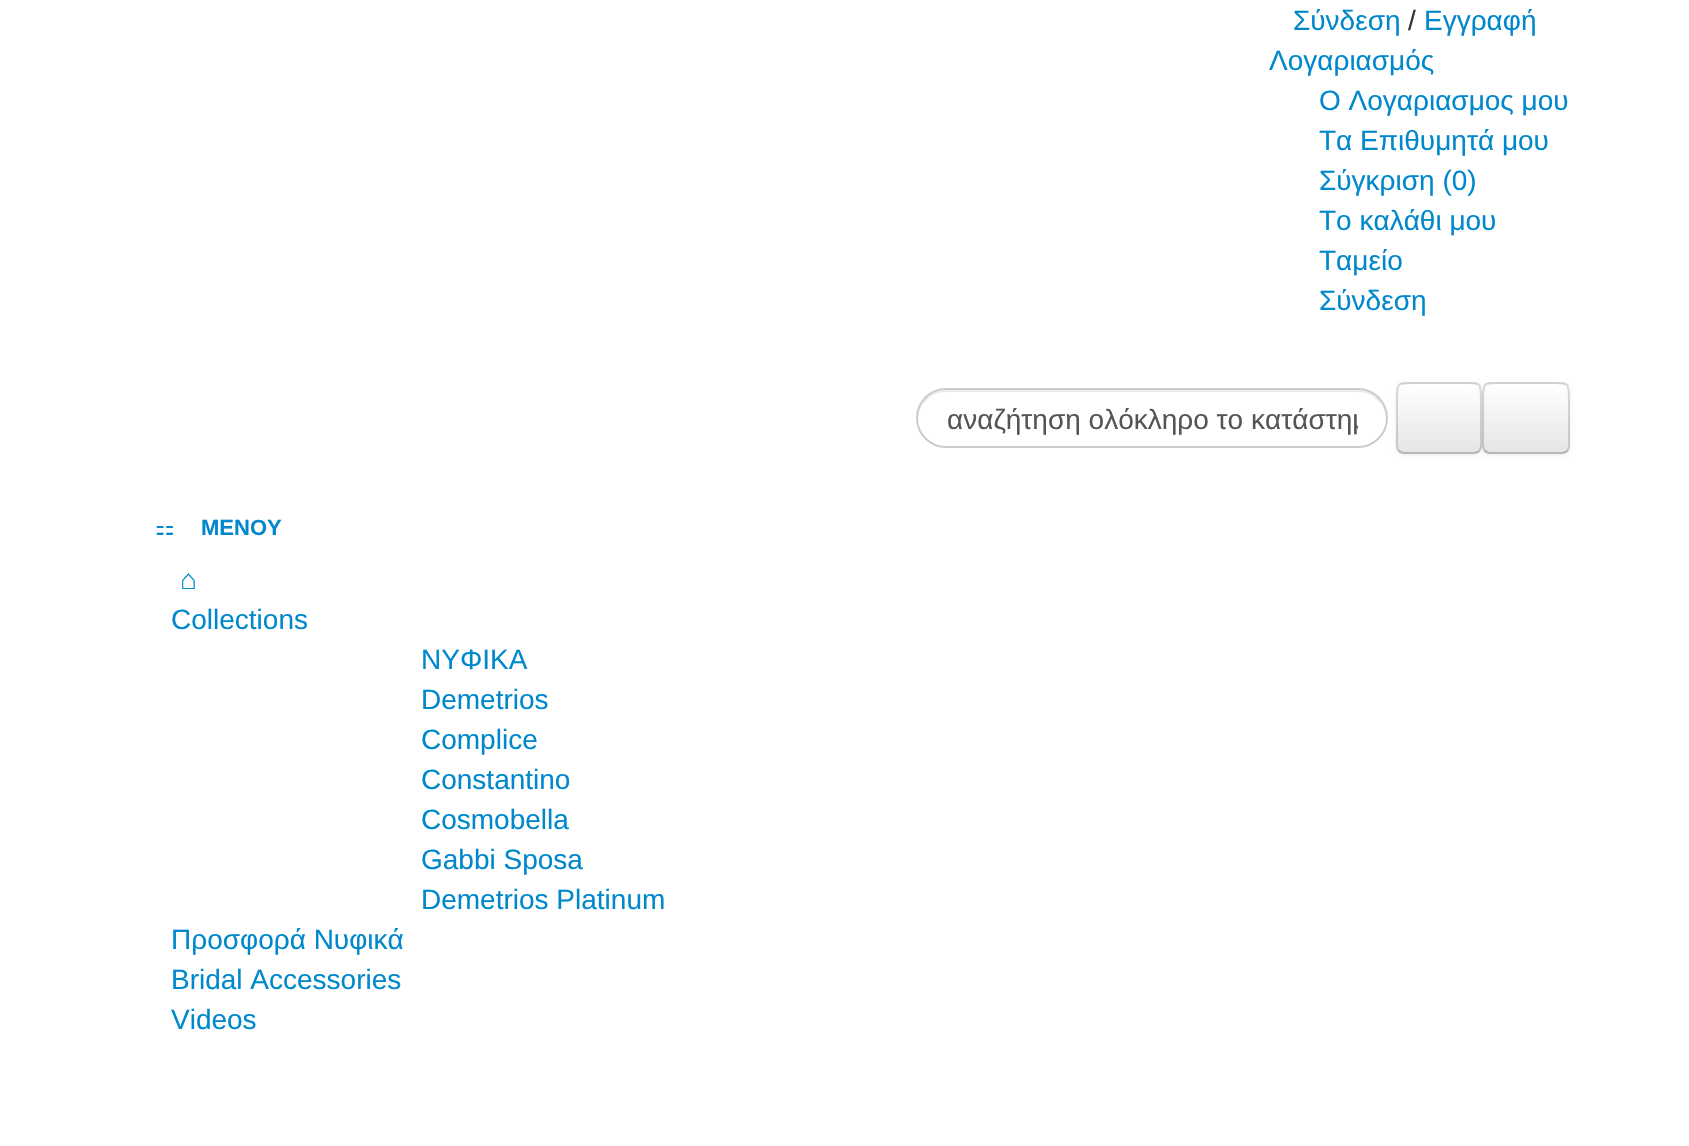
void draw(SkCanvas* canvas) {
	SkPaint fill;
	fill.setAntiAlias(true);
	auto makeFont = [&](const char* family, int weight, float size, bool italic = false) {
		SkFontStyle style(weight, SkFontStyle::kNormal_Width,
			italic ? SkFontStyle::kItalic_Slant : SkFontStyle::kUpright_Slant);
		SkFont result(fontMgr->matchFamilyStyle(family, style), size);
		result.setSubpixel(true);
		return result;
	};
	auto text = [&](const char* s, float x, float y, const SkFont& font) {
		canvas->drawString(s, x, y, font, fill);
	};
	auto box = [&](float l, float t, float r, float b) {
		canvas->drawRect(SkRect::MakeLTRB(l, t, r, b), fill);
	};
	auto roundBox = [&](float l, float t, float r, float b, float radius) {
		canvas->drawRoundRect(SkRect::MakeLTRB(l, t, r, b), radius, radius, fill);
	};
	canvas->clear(0xFFFFFFFF);
	fill.setColor(0xFFECECEC);
	canvas->drawPath(SkPathBuilder().moveTo(946, 392).lineTo(1358, 392).cubicTo(1373, 392, 1385, 404, 1386, 419).cubicTo(1387, 403, 1374, 390, 1358, 390).lineTo(946, 390).cubicTo(930, 390, 917, 403, 918, 419).cubicTo(919, 404, 931, 392, 946, 392).close().detach(), fill);
	fill.setStyle(SkPaint::kStroke_Style);
	fill.setStrokeWidth(2);
	fill.setColor(0xFFCCCCCC);
	canvas->drawRoundRect(SkRect::MakeLTRB(917, 389, 1387, 447), 29, 29, fill);
	fill.setStyle(SkPaint::kFill_Style);
	fill.setColor(0x0D000000);
	fill.setMaskFilter(SkMaskFilter::MakeBlur(kNormal_SkBlurStyle, 2));
	canvas->drawRoundRect(SkRect::MakeLTRB(1482, 384, 1570, 456), 8, 8, fill);
	fill.setMaskFilter(nullptr);
	fill.setColor(0xFFF5F5F5);
	roundBox(1482, 382, 1570, 454, 8);
	canvas->save();
	canvas->clipPath(SkPathBuilder().moveTo(1490, 382).lineTo(1562, 382).cubicTo(1566.5f, 382, 1570, 385.5f, 1570, 390).lineTo(1570, 446).cubicTo(1570, 450.5f, 1566.5f, 454, 1562, 454).lineTo(1490, 454).cubicTo(1485.5f, 454, 1482, 450.5f, 1482, 446).lineTo(1482, 390).cubicTo(1482, 385.5f, 1485.5f, 382, 1490, 382).close().detach(), true);
	{
		const SkColor colors[] = {0xFFFFFFFF, 0xFFE6E6E6};
		const float stops[] = {0, 1};
		const SkPoint ends[] = {{1526, 384}, {1526, 452}};
		fill.setShader(SkGradientShader::MakeLinear(ends, colors, stops, 2, SkTileMode::kClamp));
		fill.setAlpha(255);
	}
	box(1482, 384, 1570, 452);
	canvas->restore();
	fill.setShader(nullptr);
	fill.setColor(0xFFFFFFFF);
	canvas->drawPath(SkPathBuilder().moveTo(1490, 386).lineTo(1562, 386).cubicTo(1565, 386, 1568, 389, 1568, 392).cubicTo(1568, 381, 1559, 384, 1550, 384).lineTo(1502, 384).cubicTo(1493, 384, 1484, 381, 1484, 392).cubicTo(1484, 389, 1487, 386, 1490, 386).close().detach(), fill);
	fill.setStyle(SkPaint::kStroke_Style);
	fill.setColor(0x40000000);
	canvas->drawPath(SkPathBuilder().moveTo(1567, 451).cubicTo(1565.5f, 452.5f, 1564, 453, 1562, 453).lineTo(1490, 453).cubicTo(1488, 453, 1486.5f, 452.5f, 1485, 451).detach(), fill);
	fill.setColor(0x26000000);
	canvas->drawPath(SkPathBuilder().moveTo(1485, 451).cubicTo(1481.5f, 447.5f, 1483, 440.5f, 1483, 436.5f).lineTo(1483, 399.5f).cubicTo(1483, 381.5f, 1483.5f, 383, 1502, 383).lineTo(1550, 383).cubicTo(1568.5f, 383, 1569, 381.5f, 1569, 399.5f).lineTo(1569, 436.5f).cubicTo(1569, 440.5f, 1570.5f, 447.5f, 1567, 451).detach(), fill);
	fill.setStyle(SkPaint::kFill_Style);
	fill.setColor(0x0D000000);
	fill.setMaskFilter(SkMaskFilter::MakeBlur(kNormal_SkBlurStyle, 2));
	canvas->drawRoundRect(SkRect::MakeLTRB(1396, 384, 1482, 456), 8, 8, fill);
	fill.setMaskFilter(nullptr);
	fill.setColor(0xFFF5F5F5);
	roundBox(1396, 382, 1482, 454, 8);
	canvas->save();
	canvas->clipPath(SkPathBuilder().moveTo(1404, 382).lineTo(1474, 382).cubicTo(1478.5f, 382, 1482, 385.5f, 1482, 390).lineTo(1482, 446).cubicTo(1482, 450.5f, 1478.5f, 454, 1474, 454).lineTo(1404, 454).cubicTo(1399.5f, 454, 1396, 450.5f, 1396, 446).lineTo(1396, 390).cubicTo(1396, 385.5f, 1399.5f, 382, 1404, 382).close().detach(), true);
	{
		const SkColor colors[] = {0xFFFFFFFF, 0xFFE6E6E6};
		const float stops[] = {0, 1};
		const SkPoint ends[] = {{1439, 384}, {1439, 452}};
		fill.setShader(SkGradientShader::MakeLinear(ends, colors, stops, 2, SkTileMode::kClamp));
		fill.setAlpha(255);
	}
	box(1396, 384, 1482, 452);
	canvas->restore();
	fill.setShader(nullptr);
	fill.setColor(0xFFFFFFFF);
	canvas->drawPath(SkPathBuilder().moveTo(1404, 386).lineTo(1474, 386).cubicTo(1477, 386, 1480, 389, 1480, 392).cubicTo(1480, 381, 1471, 384, 1462, 384).lineTo(1416, 384).cubicTo(1407, 384, 1398, 381, 1398, 392).cubicTo(1398, 389, 1401, 386, 1404, 386).close().detach(), fill);
	fill.setStyle(SkPaint::kStroke_Style);
	fill.setColor(0x40000000);
	canvas->drawPath(SkPathBuilder().moveTo(1479, 451).cubicTo(1477.5f, 452.5f, 1476, 453, 1474, 453).lineTo(1404, 453).cubicTo(1402, 453, 1400.5f, 452.5f, 1399, 451).detach(), fill);
	fill.setColor(0x26000000);
	canvas->drawPath(SkPathBuilder().moveTo(1399, 451).cubicTo(1395.5f, 447.5f, 1397, 440.5f, 1397, 436.5f).lineTo(1397, 399.5f).cubicTo(1397, 381.5f, 1397.5f, 383, 1415.5f, 383).lineTo(1462.5f, 383).cubicTo(1480.5f, 383, 1481, 381.5f, 1481, 399.5f).lineTo(1481, 436.5f).cubicTo(1481, 440.5f, 1482.5f, 447.5f, 1479, 451).detach(), fill);
	auto font1 = makeFont("Liberation Sans", 400, 28);
	fill.setStyle(SkPaint::kFill_Style);
	fill.setColor(0xFF0088CC);
	text("Σύνδεση", 1293, 30, font1);
	fill.setColor(0xFF333333);
	text("/", 1408, 30, font1);
	fill.setColor(0xFF0088CC);
	text("Εγγραφή", 1424, 30, font1);
	text("Λογαριασμός", 1269, 70, font1);
	text("Ο Λογαριασμος μου", 1319, 110, font1);
	text("Τα Επιθυμητά μου", 1319, 150, font1);
	text("Σύγκριση (0)", 1319, 190, font1);
	text("Το καλάθι μου", 1319, 230, font1);
	text("Ταμείο", 1319, 270, font1);
	text("Σύνδεση", 1319, 310, font1);
	canvas->save();
	canvas->clipRect(SkRect::MakeLTRB(946, 398, 1358, 438));
	fill.setColor(0xFF555555);
	text("αναζήτηση ολόκληρο το κατάστημ", 947, 429, font1);
	canvas->restore();
	auto font2 = makeFont("DejaVu Sans", 400, 22);
	fill.setColor(0xFF0088CC);
	text("⚏", 155, 535, font2);
	auto font3 = makeFont("Liberation Sans", 700, 22);
	text("ΜΕΝΟΥ", 201, 535, font3);
	auto font4 = makeFont("Liberation Serif", 400, 28);
	text("⌂", 180, 589, font4);
	text("Collections", 171, 629, font1);
	text("ΝΥΦΙΚΑ", 421, 669, font1);
	text("Demetrios", 421, 709, font1);
	text("Complice", 421, 749, font1);
	text("Constantino", 421, 789, font1);
	text("Cosmobella", 421, 829, font1);
	text("Gabbi Sposa", 421, 869, font1);
	text("Demetrios Platinum", 421, 909, font1);
	text("Προσφορά Nυφικά", 171, 949, font1);
	text("Bridal Accessories", 171, 989, font1);
	text("Videos", 171, 1029, font1);
}
